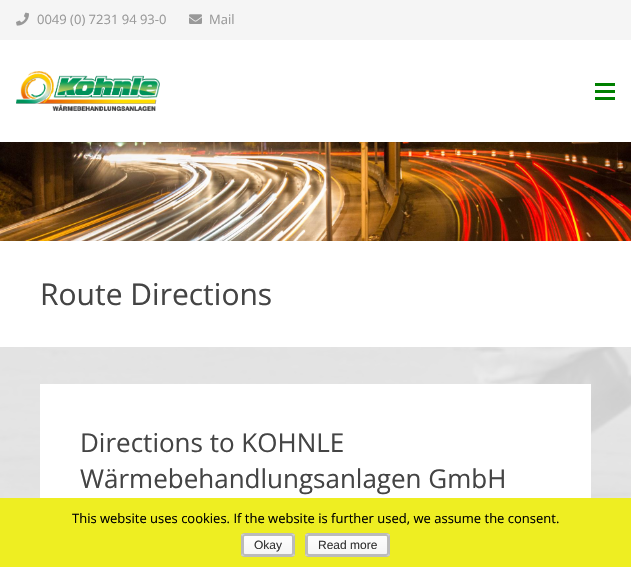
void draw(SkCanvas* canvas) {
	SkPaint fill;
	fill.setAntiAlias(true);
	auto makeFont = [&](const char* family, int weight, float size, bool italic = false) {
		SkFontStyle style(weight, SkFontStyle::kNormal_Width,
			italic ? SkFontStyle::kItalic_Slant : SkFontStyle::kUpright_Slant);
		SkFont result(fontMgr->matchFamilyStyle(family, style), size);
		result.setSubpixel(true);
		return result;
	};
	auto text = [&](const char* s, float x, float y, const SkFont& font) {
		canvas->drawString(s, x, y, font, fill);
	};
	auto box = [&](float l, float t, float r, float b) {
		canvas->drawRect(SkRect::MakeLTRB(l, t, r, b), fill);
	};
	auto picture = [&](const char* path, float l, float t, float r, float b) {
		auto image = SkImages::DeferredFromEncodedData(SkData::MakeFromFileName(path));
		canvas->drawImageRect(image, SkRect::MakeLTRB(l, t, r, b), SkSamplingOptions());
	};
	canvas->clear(0xFFFFFFFF);
	fill.setColor(0xFFF5F5F5);
	box(0, 0, 631, 40);
	picture("image0.png", 16, 12, 29, 26);
	picture("image1.png", 189, 14, 202, 24);
	picture("image3.png", 0, 142, 631, 241);
	fill.setColor(0x14000000);
	box(24, 142, 631, 143);
	picture("image2.png", 16, 71, 160, 111);
	fill.setColor(0xFF008000);
	box(595, 90, 615, 93);
	box(595, 83, 615, 86);
	box(595, 97, 615, 100);
	picture("image4.png", 0, 347, 631, 498);
	fill.setColor(0xFFFFFFFF);
	box(40, 384, 591, 498);
	fill.setColor(0xFFEEEE22);
	box(0, 498, 631, 567);
	canvas->save();
	canvas->clipPath(SkPathBuilder().moveTo(244, 533).lineTo(292, 533).cubicTo(293.5f, 533, 295, 534.5f, 295, 536).lineTo(295, 554).cubicTo(295, 555.5f, 293.5f, 557, 292, 557).lineTo(244, 557).cubicTo(242.5f, 557, 241, 555.5f, 241, 554).lineTo(241, 536).cubicTo(241, 534.5f, 242.5f, 533, 244, 533).close().detach(), true);
	{
		const SkColor colors[] = {0xFFFEFEFE, 0xFFF4F4F4};
		const float stops[] = {0, 1};
		const SkPoint ends[] = {{268, 534}, {268, 556}};
		fill.setShader(SkGradientShader::MakeLinear(ends, colors, stops, 2, SkTileMode::kClamp));
		fill.setAlpha(255);
	}
	box(241, 534, 295, 556);
	canvas->restore();
	fill.setStyle(SkPaint::kStroke_Style);
	fill.setStrokeWidth(1);
	fill.setShader(nullptr);
	fill.setColor(0xFFBBBBBB);
	canvas->drawRoundRect(SkRect::MakeLTRB(241.5f, 533.5f, 294.5f, 556.5f), 2.5f, 2.5f, fill);
	fill.setStrokeWidth(2);
	canvas->drawRoundRect(SkRect::MakeLTRB(243, 535, 293, 555), 2, 2, fill);
	canvas->save();
	canvas->clipPath(SkPathBuilder().moveTo(308, 533).lineTo(387, 533).cubicTo(388.5f, 533, 390, 534.5f, 390, 536).lineTo(390, 554).cubicTo(390, 555.5f, 388.5f, 557, 387, 557).lineTo(308, 557).cubicTo(306.5f, 557, 305, 555.5f, 305, 554).lineTo(305, 536).cubicTo(305, 534.5f, 306.5f, 533, 308, 533).close().detach(), true);
	fill.setStyle(SkPaint::kFill_Style);
	{
		const SkColor colors[] = {0xFFFEFEFE, 0xFFF4F4F4};
		const float stops[] = {0, 1};
		const SkPoint ends[] = {{348, 534}, {348, 556}};
		fill.setShader(SkGradientShader::MakeLinear(ends, colors, stops, 2, SkTileMode::kClamp));
		fill.setAlpha(255);
	}
	box(305, 534, 390, 556);
	canvas->restore();
	fill.setStyle(SkPaint::kStroke_Style);
	fill.setStrokeWidth(1);
	fill.setShader(nullptr);
	fill.setColor(0xFFBBBBBB);
	canvas->drawRoundRect(SkRect::MakeLTRB(305.5f, 533.5f, 389.5f, 556.5f), 2.5f, 2.5f, fill);
	fill.setStrokeWidth(2);
	canvas->drawRoundRect(SkRect::MakeLTRB(307, 535, 388, 555), 2, 2, fill);
	auto font1 = makeFont("Open Sans", 400, 13);
	fill.setStyle(SkPaint::kFill_Style);
	fill.setColor(0xFF999999);
	text("0049 (0) 7231 94 93-0", 37, 24, font1);
	text("Mail", 209, 24, font1);
	auto font2 = makeFont("Open Sans", 400, 30);
	fill.setColor(0xFF444444);
	text("Route Directions", 40, 305, font2);
	auto font3 = makeFont("Open Sans", 400, 26);
	text("Directions to KOHNLE", 80, 452, font3);
	text("Wärmebehandlungsanlagen GmbH", 80, 488, font3);
	fill.setColor(0xFF000000);
	text("This website uses cookies. If the website is further used, we assume the consent.", 72, 523, font1);
	auto font4 = makeFont("Liberation Sans", 400, 12);
	fill.setColor(0xFF333333);
	text("Okay", 254, 549, font4);
	text("Read more", 318, 549, font4);
}
